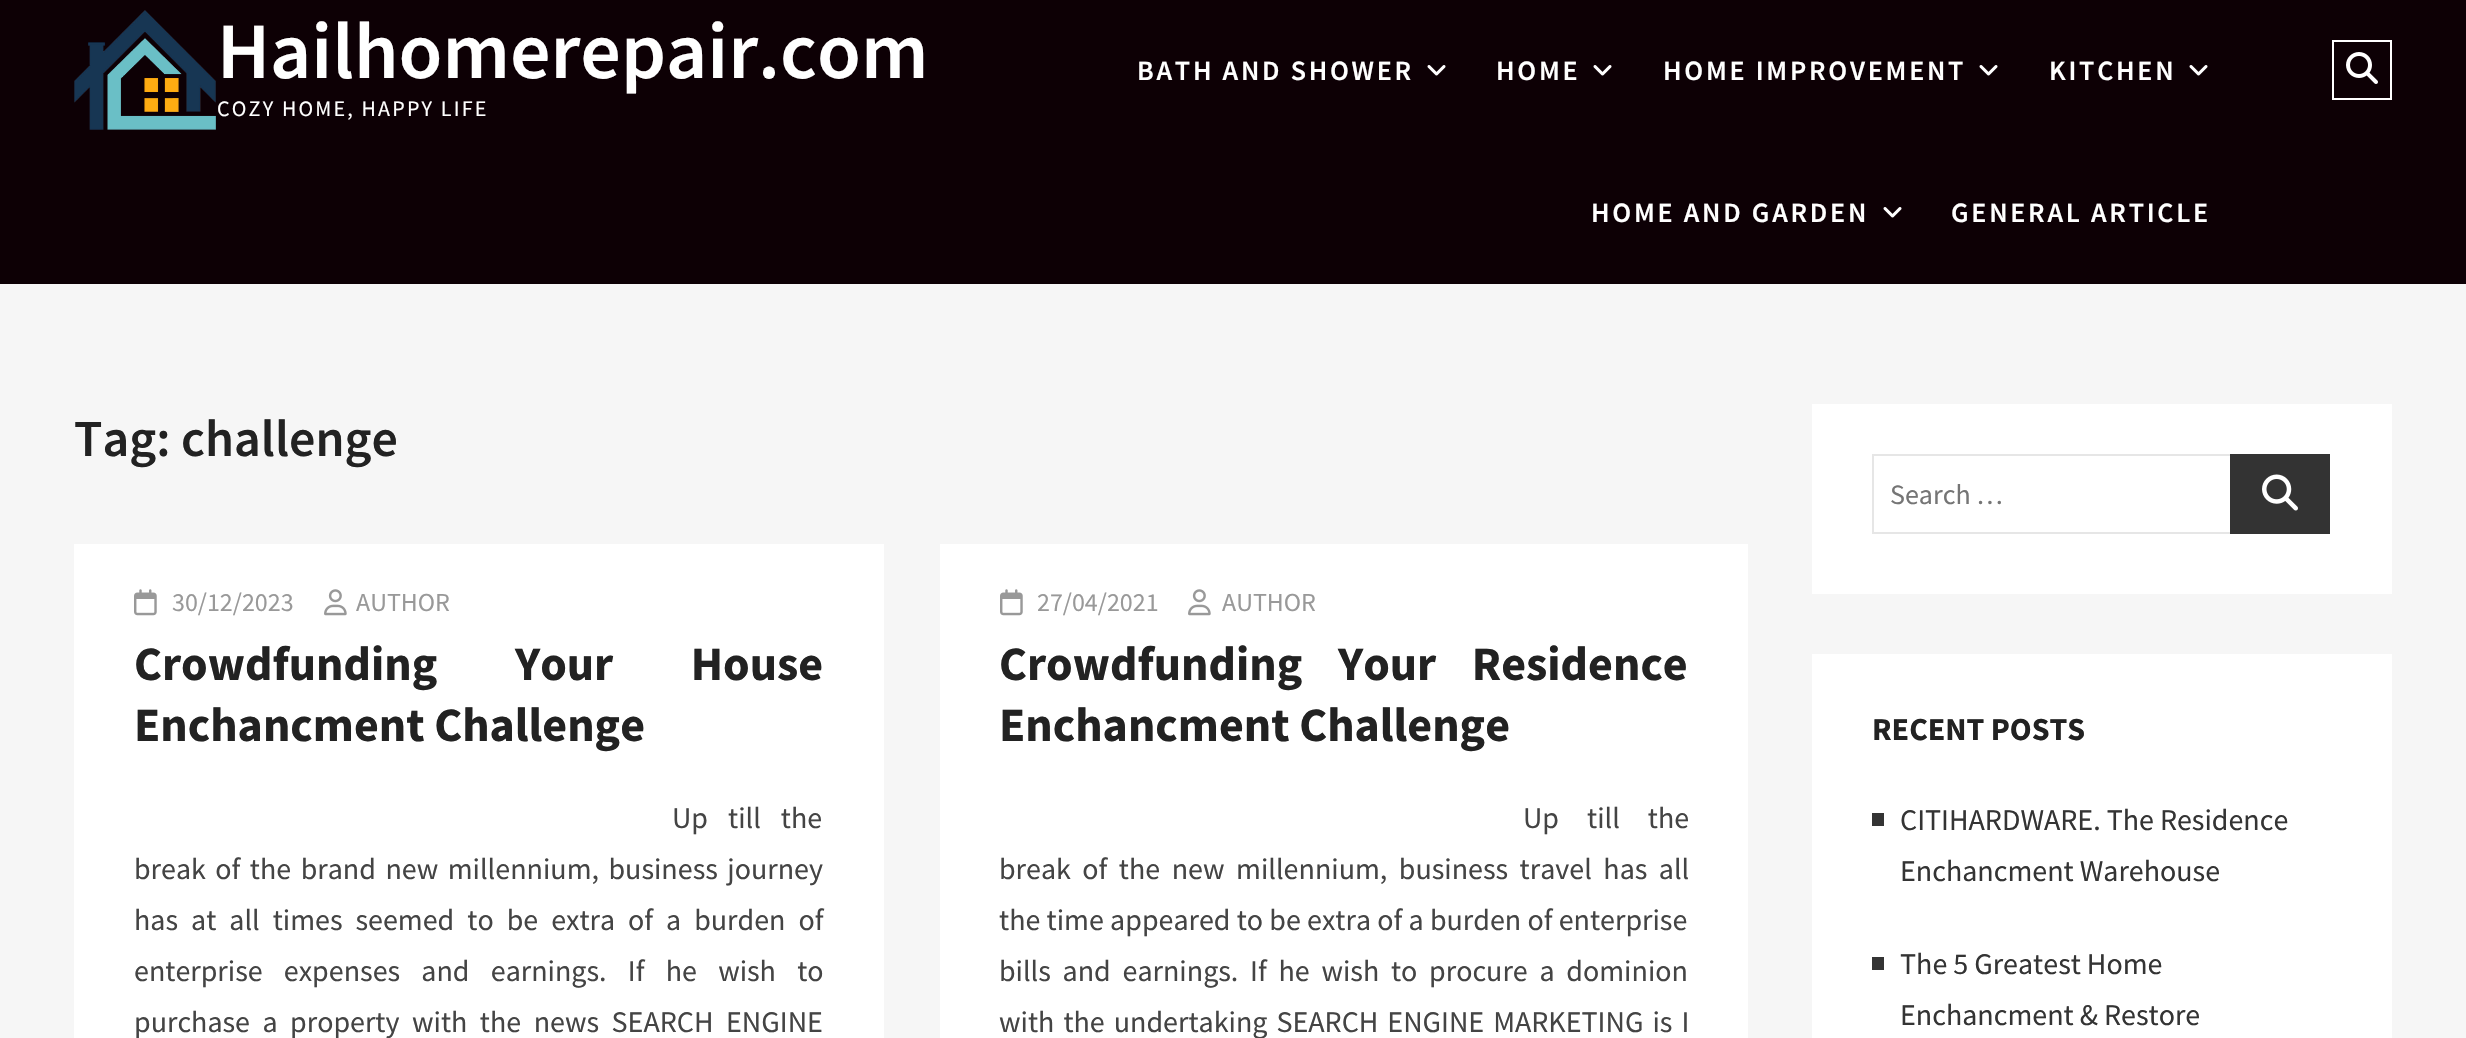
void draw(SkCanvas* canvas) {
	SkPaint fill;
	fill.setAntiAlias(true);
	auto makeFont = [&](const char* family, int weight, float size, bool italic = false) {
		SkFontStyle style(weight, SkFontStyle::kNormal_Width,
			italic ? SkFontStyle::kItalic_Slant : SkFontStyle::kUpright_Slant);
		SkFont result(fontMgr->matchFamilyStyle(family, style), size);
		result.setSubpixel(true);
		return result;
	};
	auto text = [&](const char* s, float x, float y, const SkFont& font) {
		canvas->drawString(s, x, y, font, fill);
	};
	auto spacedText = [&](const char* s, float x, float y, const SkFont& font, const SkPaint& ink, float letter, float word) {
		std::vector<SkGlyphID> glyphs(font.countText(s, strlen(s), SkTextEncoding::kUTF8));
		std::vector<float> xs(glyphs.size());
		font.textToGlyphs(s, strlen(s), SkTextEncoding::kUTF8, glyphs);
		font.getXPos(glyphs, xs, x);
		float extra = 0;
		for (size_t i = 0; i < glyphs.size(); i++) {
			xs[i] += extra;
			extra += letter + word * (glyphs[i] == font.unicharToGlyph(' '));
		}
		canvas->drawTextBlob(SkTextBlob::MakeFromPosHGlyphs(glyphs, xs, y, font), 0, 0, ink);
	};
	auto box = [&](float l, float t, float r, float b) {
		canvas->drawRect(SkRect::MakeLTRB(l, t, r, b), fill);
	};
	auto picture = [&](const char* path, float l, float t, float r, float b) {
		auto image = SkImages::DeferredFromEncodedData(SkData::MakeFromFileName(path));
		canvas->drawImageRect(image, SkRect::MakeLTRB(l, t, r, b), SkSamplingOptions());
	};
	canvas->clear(0xFFF6F6F6);
	fill.setColor(0xFF0D0005);
	box(0, 0, 2466, 284);
	picture("image0.png", 74, 10, 216, 130);
	picture("image1.png", 1427, 65, 1446, 76);
	picture("image1.png", 1593, 65, 1612, 76);
	picture("image1.png", 1979, 65, 1998, 76);
	picture("image1.png", 2189, 65, 2208, 76);
	picture("image1.png", 1883, 207, 1902, 218);
	fill.setStyle(SkPaint::kStroke_Style);
	fill.setStrokeWidth(2);
	fill.setColor(0xFFFFFFFF);
	canvas->drawRect(SkRect::MakeLTRB(2333, 41, 2391, 99), fill);
	picture("image2.png", 2346, 52, 2378, 84);
	fill.setStyle(SkPaint::kFill_Style);
	box(74, 544, 884, 1038);
	picture("image3.png", 134, 589, 157, 616);
	picture("image4.png", 324, 589, 347, 616);
	box(940, 544, 1748, 1038);
	picture("image3.png", 1000, 589, 1023, 616);
	picture("image4.png", 1188, 589, 1211, 616);
	box(1812, 404, 2392, 594);
	fill.setStyle(SkPaint::kStroke_Style);
	fill.setColor(0xFFE6E6E6);
	canvas->drawRect(SkRect::MakeLTRB(1873, 455, 2231, 533), fill);
	fill.setStyle(SkPaint::kFill_Style);
	fill.setColor(0xFF333333);
	box(2230, 454, 2330, 534);
	picture("image5.png", 2262, 474, 2298, 511);
	fill.setColor(0xFFFFFFFF);
	box(1812, 654, 2392, 1038);
	fill.setColor(0xFF343434);
	box(1872, 813, 1884, 826);
	box(1872, 957, 1884, 970);
	auto font1 = makeFont("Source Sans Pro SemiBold", 600, 80);
	fill.setColor(0xFFFFFFFF);
	text("Hailhomerepair.com", 217, 78, font1);
	auto font2 = makeFont("Source Sans Pro", 400, 22);
	spacedText("COZY HOME, HAPPY LIFE", 217, 116, font2, fill, 2.2f, 0);
	auto font3 = makeFont("Source Sans Pro SemiBold", 600, 28);
	spacedText("BATH AND SHOWER", 1137, 80, font3, fill, 2.75f, 0);
	spacedText("HOME", 1496, 80, font3, fill, 2.75f, 0);
	spacedText("HOME IMPROVEMENT", 1663, 80, font3, fill, 2.75f, 0);
	spacedText("KITCHEN", 2049, 80, font3, fill, 2.75f, 0);
	spacedText("HOME AND GARDEN", 1591, 222, font3, fill, 2.75f, 0);
	spacedText("GENERAL ARTICLE", 1951, 222, font3, fill, 2.75f, 0);
	auto font4 = makeFont("Source Sans Pro SemiBold", 600, 52);
	fill.setColor(0xFF222222);
	text("Tag: challenge", 74, 456, font4);
	auto font5 = makeFont("Source Sans Pro", 400, 26);
	fill.setColor(0xFF999999);
	text("30/12/2023", 172, 611, font5);
	text("AUTHOR", 356, 611, font5);
	auto font6 = makeFont("Source Sans Pro", 700, 48);
	fill.setColor(0xFF222222);
	spacedText("Crowdfunding Your House", 134, 680, font6, fill, 0, 68);
	text("Enchancment Challenge", 134, 741, font6);
	auto font7 = makeFont("Source Sans Pro", 400, 30);
	fill.setColor(0xFF444444);
	spacedText("Up till the", 672, 828, font7, fill, 0, 14);
	spacedText("break of the brand new millennium, business journey", 134, 879, font7, fill, 0, 3.5f);
	spacedText("has at all times seemed to be extra of a burden of", 134, 930, font7, fill, 0, 7);
	spacedText("enterprise expenses and earnings. If he wish to", 134, 981, font7, fill, 0, 15.25f);
	spacedText("purchase a property with the news SEARCH ENGINE", 134, 1032, font7, fill, 0, 6.5f);
	fill.setColor(0xFF999999);
	text("27/04/2021", 1037, 611, font5);
	text("AUTHOR", 1222, 611, font5);
	fill.setColor(0xFF222222);
	spacedText("Crowdfunding Your Residence", 999, 680, font6, fill, 0, 26);
	text("Enchancment Challenge", 999, 741, font6);
	fill.setColor(0xFF444444);
	spacedText("Up till the", 1523, 828, font7, fill, 0, 22);
	spacedText("break of the new millennium, business travel has all", 999, 879, font7, fill, 0, 5.5f);
	spacedText("the time appeared to be extra of a burden of enterprise", 999, 930, font7, fill, 0, 0.25f);
	spacedText("bills and earnings. If he wish to procure a dominion", 999, 981, font7, fill, 0, 5.75f);
	spacedText("with the undertaking SEARCH ENGINE MARKETING is I", 999, 1032, font7, fill, 0, 3);
	auto font8 = makeFont("Source Sans Pro", 400, 28);
	fill.setColor(0xFF757575);
	text("Search …", 1890, 504, font8);
	auto font9 = makeFont("Source Sans Pro", 700, 32);
	fill.setColor(0xFF222222);
	text("RECENT POSTS", 1872, 740, font9);
	fill.setColor(0xFF343434);
	text("CITIHARDWARE. The Residence", 1900, 830, font7);
	text("Enchancment Warehouse", 1900, 881, font7);
	text("The 5 Greatest Home", 1900, 974, font7);
	text("Enchancment & Restore", 1900, 1025, font7);
}
